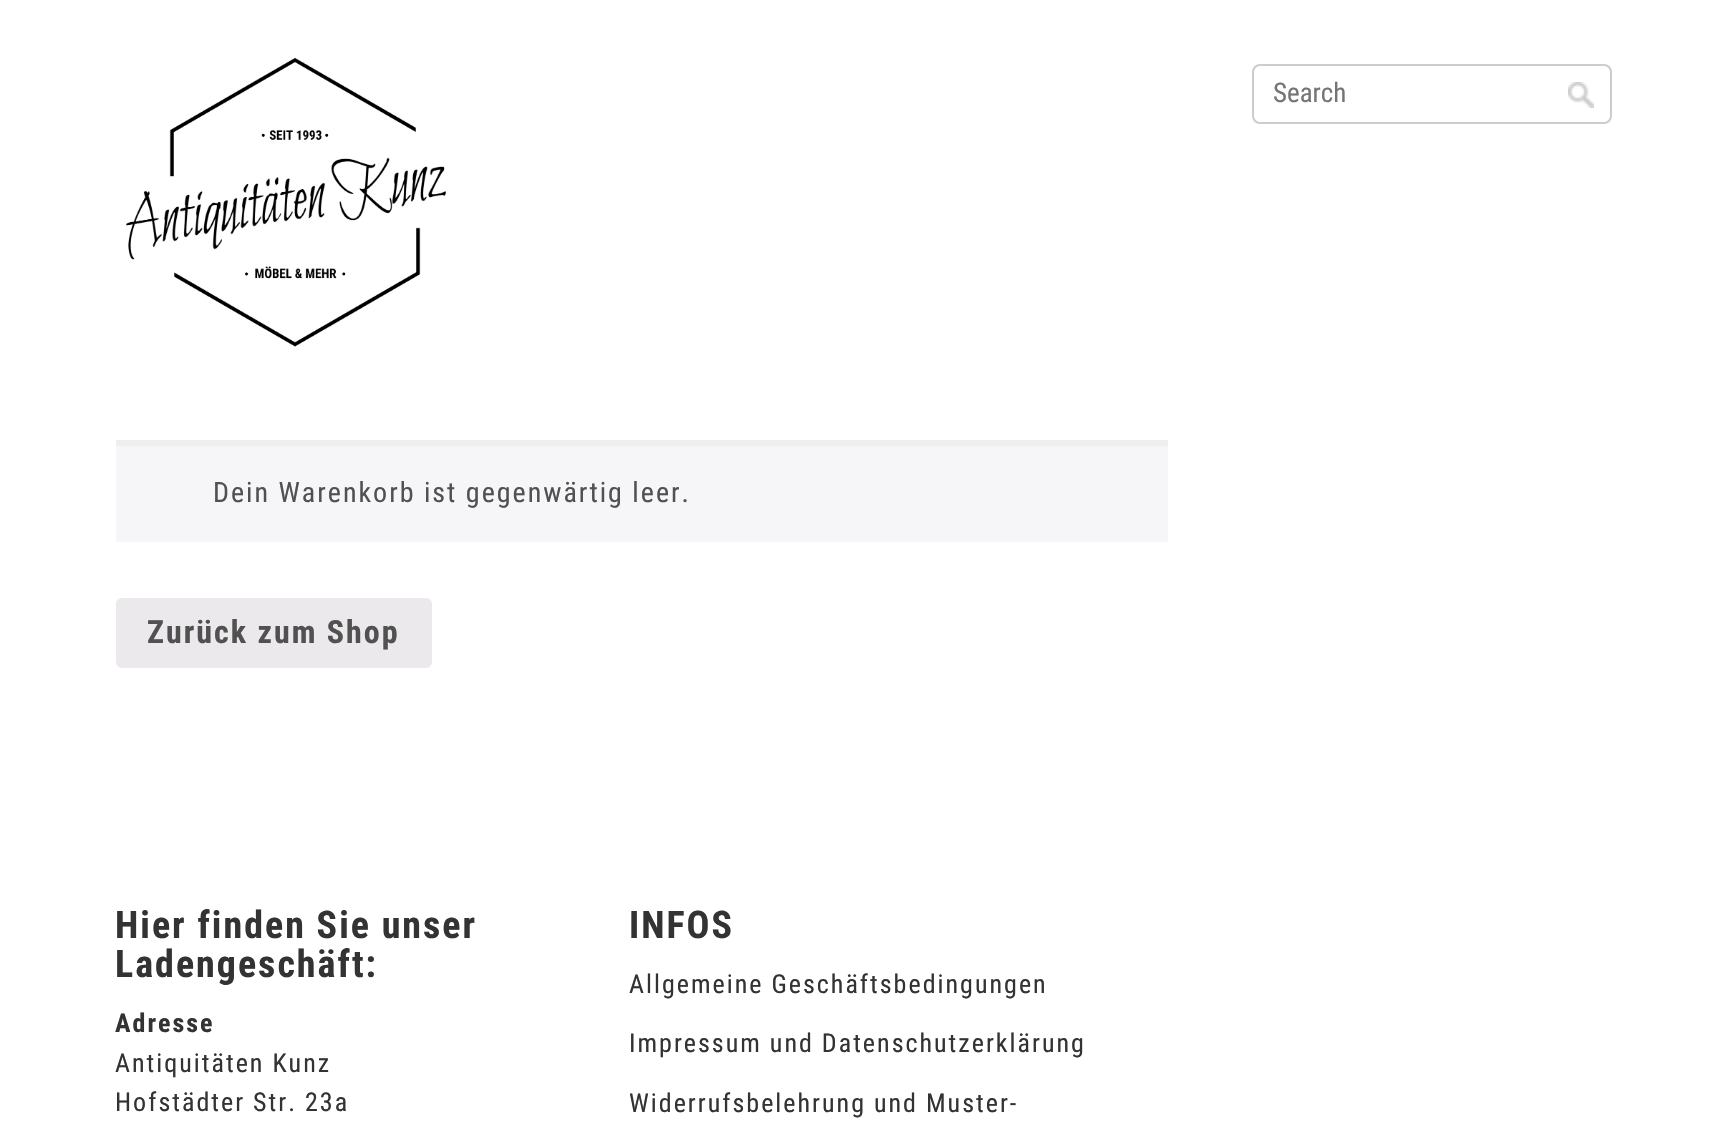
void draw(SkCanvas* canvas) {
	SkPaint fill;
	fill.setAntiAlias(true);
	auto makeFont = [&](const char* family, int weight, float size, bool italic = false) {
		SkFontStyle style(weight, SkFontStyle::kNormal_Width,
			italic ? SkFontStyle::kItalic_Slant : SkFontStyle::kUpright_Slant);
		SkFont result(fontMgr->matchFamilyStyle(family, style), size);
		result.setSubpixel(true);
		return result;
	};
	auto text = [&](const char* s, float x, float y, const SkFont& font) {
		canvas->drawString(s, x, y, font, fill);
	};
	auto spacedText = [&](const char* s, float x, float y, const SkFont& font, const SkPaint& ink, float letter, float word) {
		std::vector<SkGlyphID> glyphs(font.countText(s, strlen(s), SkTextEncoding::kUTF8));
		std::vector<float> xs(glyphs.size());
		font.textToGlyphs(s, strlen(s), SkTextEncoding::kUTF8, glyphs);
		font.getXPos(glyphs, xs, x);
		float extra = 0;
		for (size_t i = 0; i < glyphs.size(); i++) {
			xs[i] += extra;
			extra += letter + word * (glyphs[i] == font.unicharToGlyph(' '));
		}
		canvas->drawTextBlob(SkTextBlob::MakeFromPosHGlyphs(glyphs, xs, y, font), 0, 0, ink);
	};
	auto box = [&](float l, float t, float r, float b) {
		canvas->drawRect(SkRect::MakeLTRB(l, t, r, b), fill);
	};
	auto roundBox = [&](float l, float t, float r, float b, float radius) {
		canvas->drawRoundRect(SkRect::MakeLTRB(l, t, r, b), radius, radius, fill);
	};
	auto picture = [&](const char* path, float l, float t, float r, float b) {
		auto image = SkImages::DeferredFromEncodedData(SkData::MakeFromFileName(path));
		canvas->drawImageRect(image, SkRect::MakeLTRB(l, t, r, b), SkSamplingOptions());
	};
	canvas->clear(0xFFFFFFFF);
	picture("image0.png", 126, 57, 446, 347);
	fill.setStyle(SkPaint::kStroke_Style);
	fill.setStrokeWidth(2);
	fill.setColor(0xFFCCCCCC);
	canvas->drawRoundRect(SkRect::MakeLTRB(1253, 65, 1611, 123), 7, 7, fill);
	picture("image1.png", 1568, 82, 1594, 108);
	fill.setStyle(SkPaint::kFill_Style);
	fill.setColor(0xFFF6F5F8);
	box(116, 446, 1168, 542);
	fill.setColor(0xFFEEEEEE);
	box(116, 440, 1168, 446);
	fill.setColor(0xFFEBE9EB);
	roundBox(116, 598, 432, 668, 6);
	auto font1 = makeFont("Roboto Condensed", 400, 27);
	fill.setColor(0xFF757575);
	text("Search", 1273, 102, font1);
	auto font2 = makeFont("Roboto Condensed", 400, 28);
	fill.setColor(0xFF515151);
	spacedText("Dein Warenkorb ist gegenwärtig leer.", 213, 502, font2, fill, 2, 0);
	auto font3 = makeFont("Roboto Condensed", 700, 32);
	spacedText("Zurück zum Shop", 147, 643, font3, fill, 2, 0);
	auto font4 = makeFont("Roboto Condensed", 700, 38);
	fill.setColor(0xFF333333);
	spacedText("Hier finden Sie unser", 115, 938, font4, fill, 2, 0);
	spacedText("Ladengeschäft:", 115, 977, font4, fill, 2, 0);
	auto font5 = makeFont("Roboto Condensed", 700, 26);
	spacedText("Adresse", 115, 1032, font5, fill, 2, 0);
	auto font6 = makeFont("Roboto Condensed", 400, 26);
	spacedText("Antiquitäten Kunz", 115, 1072, font6, fill, 2, 0);
	spacedText("Hofstädter Str. 23a", 115, 1111, font6, fill, 2, 0);
	spacedText("INFOS", 629, 938, font4, fill, 2, 0);
	spacedText("Allgemeine Geschäftsbedingungen", 629, 993, font6, fill, 2, 0);
	spacedText("Impressum und Datenschutzerklärung", 629, 1052, font6, fill, 2, 0);
	spacedText("Widerrufsbelehrung und Muster-", 629, 1112, font6, fill, 2, 0);
}
